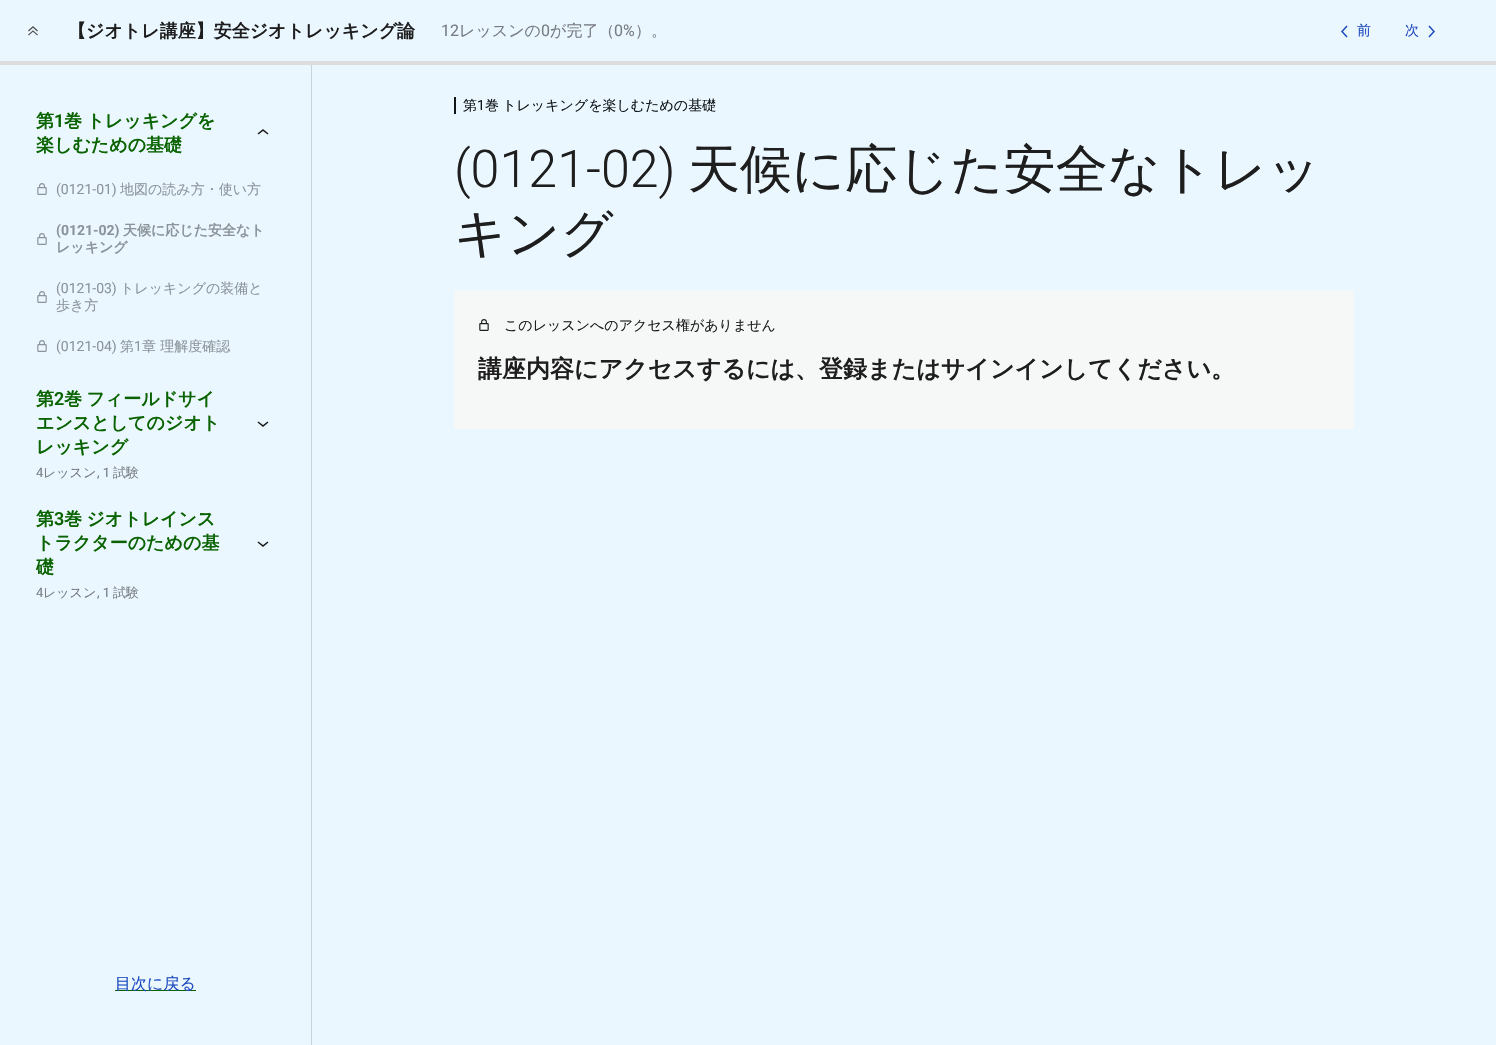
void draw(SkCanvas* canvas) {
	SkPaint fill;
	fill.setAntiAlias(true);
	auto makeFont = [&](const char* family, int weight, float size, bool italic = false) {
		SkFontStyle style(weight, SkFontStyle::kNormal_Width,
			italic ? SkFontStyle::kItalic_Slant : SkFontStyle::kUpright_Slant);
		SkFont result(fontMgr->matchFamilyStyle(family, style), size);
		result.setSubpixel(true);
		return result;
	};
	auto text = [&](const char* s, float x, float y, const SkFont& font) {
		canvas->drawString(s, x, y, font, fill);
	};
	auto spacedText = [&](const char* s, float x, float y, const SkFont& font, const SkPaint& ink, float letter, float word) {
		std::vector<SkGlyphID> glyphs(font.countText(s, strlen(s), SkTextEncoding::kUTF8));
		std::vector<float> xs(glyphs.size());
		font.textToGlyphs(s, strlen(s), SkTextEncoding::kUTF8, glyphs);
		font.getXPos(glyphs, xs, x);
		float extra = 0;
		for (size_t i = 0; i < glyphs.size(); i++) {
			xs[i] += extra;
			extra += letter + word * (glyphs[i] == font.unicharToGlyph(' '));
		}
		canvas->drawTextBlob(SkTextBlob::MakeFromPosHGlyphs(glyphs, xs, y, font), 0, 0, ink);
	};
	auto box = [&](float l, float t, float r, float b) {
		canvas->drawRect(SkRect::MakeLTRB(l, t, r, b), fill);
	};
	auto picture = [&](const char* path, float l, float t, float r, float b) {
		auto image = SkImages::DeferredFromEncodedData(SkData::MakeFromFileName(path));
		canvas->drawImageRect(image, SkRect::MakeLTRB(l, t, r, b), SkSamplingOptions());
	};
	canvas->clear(0xFFEAF7FF);
	picture("image0.png", 28, 26, 38, 36);
	picture("image1.png", 1341, 25, 1348, 38);
	picture("image2.png", 1428, 25, 1435, 38);
	fill.setColor(0xFFDCDCDE);
	box(0, 61, 1496, 65);
	fill.setColor(0xFFC9D2D8);
	box(311, 65, 312, 1045);
	picture("image3.png", 257, 129, 269, 135);
	picture("image4.png", 37, 183, 47, 195);
	picture("image4.png", 37, 233, 47, 245);
	picture("image4.png", 37, 291, 47, 303);
	picture("image4.png", 37, 340, 47, 352);
	picture("image5.png", 257, 421, 269, 427);
	picture("image5.png", 257, 541, 269, 547);
	fill.setColor(0xFF096300);
	box(115, 990, 196, 991);
	fill.setColor(0xFF101517);
	box(454, 97, 456, 114);
	fill.setColor(0xFFF6F7F7);
	box(454, 290, 1354, 429);
	picture("image6.png", 479, 319, 489, 331);
	auto font1 = makeFont("WenQuanYi Zen Hei", 700, 18);
	fill.setColor(0xFF1E1E1E);
	text("【ジオトレ講座】安全ジオトレッキング論", 68, 37, font1);
	auto font2 = makeFont("Roboto", 400, 16);
	fill.setColor(0xFF787C82);
	text("12", 441, 36, font2);
	auto font3 = makeFont("WenQuanYi Zen Hei", 500, 16);
	text("レッスンの", 459, 36, font3);
	text("0", 541, 36, font2);
	text("が完了（", 550, 36, font3);
	text("0%", 614, 36, font2);
	text("）。", 635, 36, font3);
	auto font4 = makeFont("WenQuanYi Zen Hei", 500, 14);
	fill.setColor(0xFF1F4ABF);
	text("前", 1357, 35, font4);
	text("次", 1405, 35, font4);
	fill.setColor(0xFF096300);
	text("第", 36, 127, font1);
	auto font5 = makeFont("Roboto", 600, 18);
	text("1", 54, 127, font5);
	spacedText("巻 トレッキングを", 64, 127, font1, fill, 0, -1);
	text("楽しむための基礎", 36, 151, font1);
	auto font6 = makeFont("Roboto", 400, 14);
	fill.setColor(0xFF8C949B);
	text("(0121-01)", 56, 194, font6);
	text("地図の読み方・使い方", 120, 194, font4);
	auto font7 = makeFont("Roboto", 700, 14);
	text("(0121-02)", 56, 235, font7);
	auto font8 = makeFont("WenQuanYi Zen Hei", 700, 14);
	text("天候に応じた安全なト", 123, 235, font8);
	text("レッキング", 56, 252, font8);
	text("(0121-03)", 56, 293, font6);
	text("トレッキングの装備と", 120, 293, font4);
	text("歩き方", 56, 310, font4);
	text("(0121-04)", 56, 351, font6);
	text("第", 120, 351, font4);
	text("1", 134, 351, font6);
	text("章 理解度確認", 142, 351, font4);
	fill.setColor(0xFF096300);
	text("第", 36, 405, font1);
	text("2", 54, 405, font5);
	spacedText("巻 フィールドサイ", 64, 405, font1, fill, 0, -1);
	text("エンスとしてのジオト", 36, 429, font1);
	text("レッキング", 36, 453, font1);
	auto font9 = makeFont("Roboto", 400, 13);
	fill.setColor(0xFF787C82);
	text("4", 36, 477, font9);
	auto font10 = makeFont("WenQuanYi Zen Hei", 500, 13);
	text("レッスン", 43, 477, font10);
	text(", 1", 97, 477, font9);
	text("試験", 113, 477, font10);
	fill.setColor(0xFF096300);
	text("第", 36, 525, font1);
	text("3", 54, 525, font5);
	spacedText("巻 ジオトレインス", 64, 525, font1, fill, 0, -1);
	text("トラクターのための基", 36, 549, font1);
	text("礎", 36, 573, font1);
	fill.setColor(0xFF787C82);
	text("4", 36, 597, font9);
	text("レッスン", 43, 597, font10);
	text(", 1", 97, 597, font9);
	text("試験", 113, 597, font10);
	fill.setColor(0xFF1F4ABF);
	text("目次に戻る", 115, 989, font3);
	fill.setColor(0xFF101517);
	text("第", 463, 110, font4);
	text("1", 477, 110, font6);
	spacedText("巻 トレッキングを楽しむための基礎", 485, 110, font4, fill, 0, -1);
	auto font11 = makeFont("Roboto", 300, 52);
	fill.setColor(0xFF1E1E1E);
	text("(0121-02)", 454, 187, font11);
	auto font12 = makeFont("WenQuanYi Zen Hei", 500, 52);
	text("天候に応じた安全なトレッ", 688, 187, font12);
	text("キング", 454, 251, font12);
	text("このレッスンへのアクセス権がありません", 504, 330, font4);
	auto font13 = makeFont("WenQuanYi Zen Hei", 700, 24);
	text("講座内容にアクセスするには、登録またはサインインしてください。", 478, 377, font13);
}
